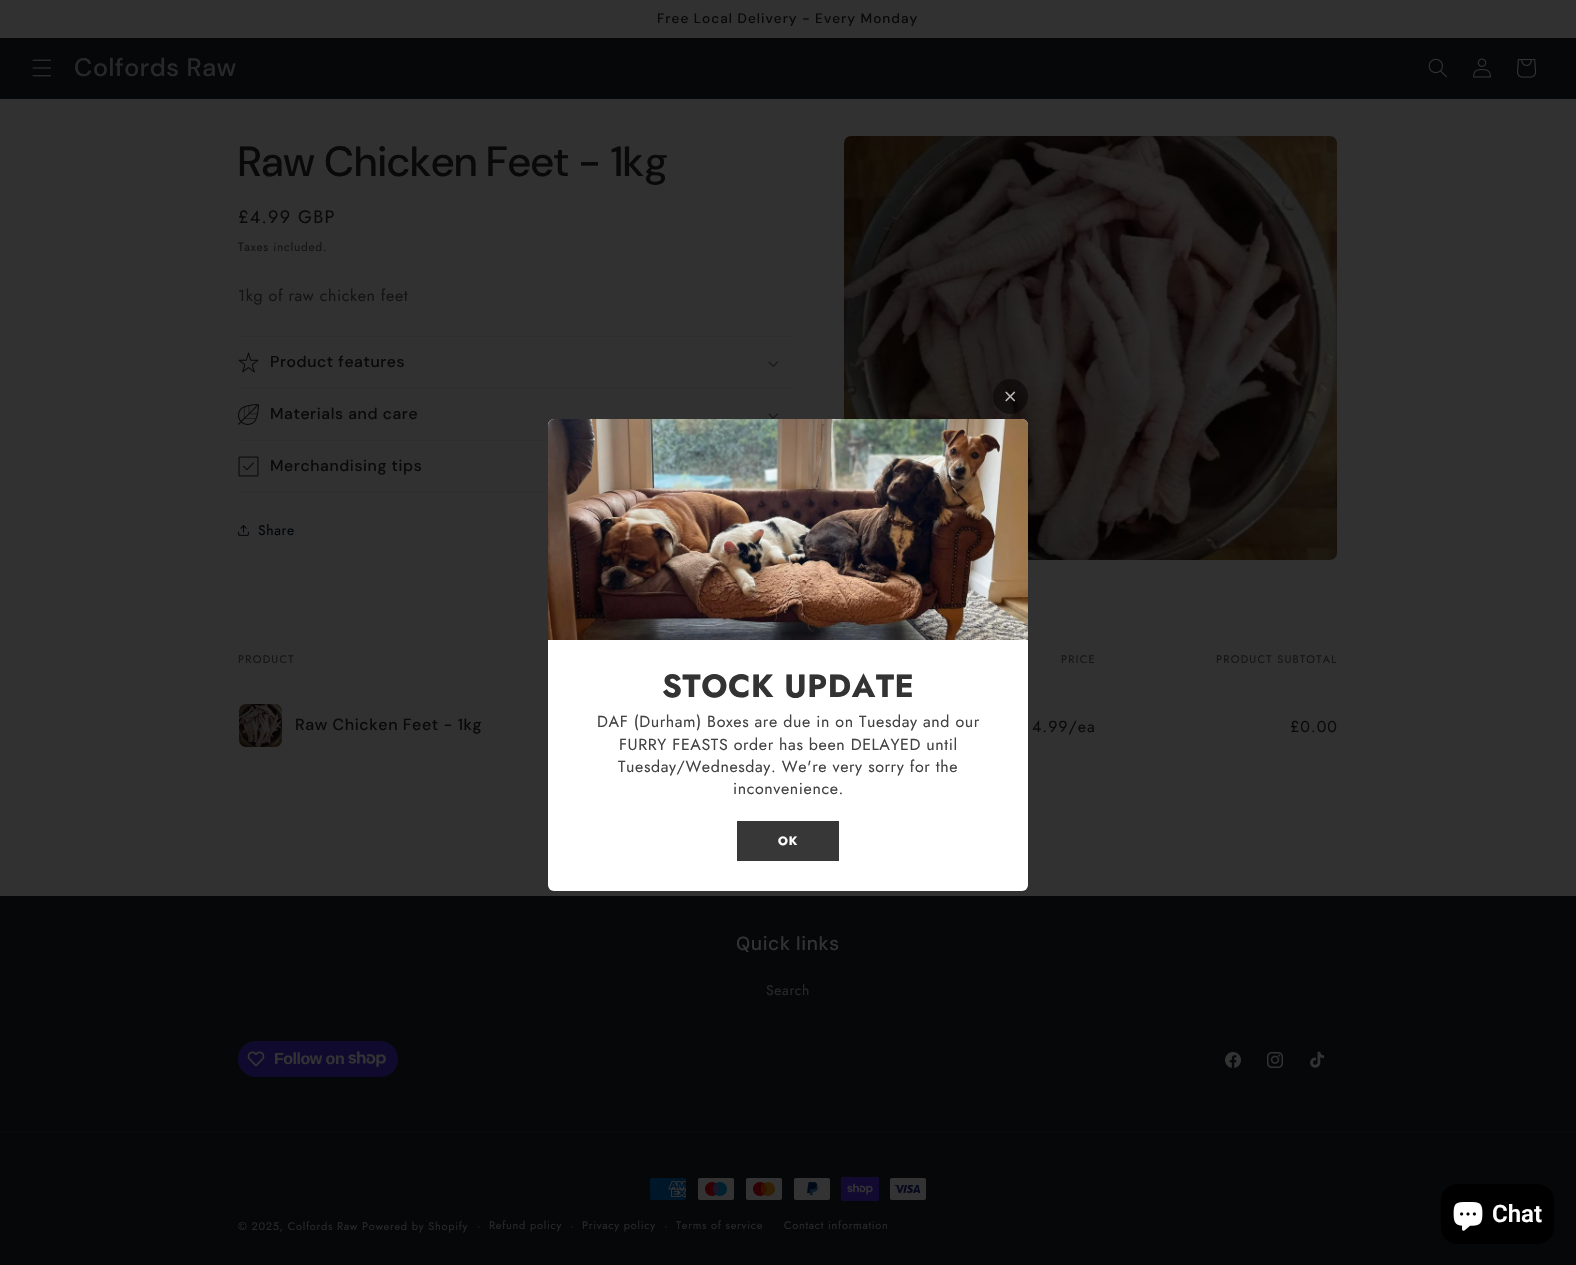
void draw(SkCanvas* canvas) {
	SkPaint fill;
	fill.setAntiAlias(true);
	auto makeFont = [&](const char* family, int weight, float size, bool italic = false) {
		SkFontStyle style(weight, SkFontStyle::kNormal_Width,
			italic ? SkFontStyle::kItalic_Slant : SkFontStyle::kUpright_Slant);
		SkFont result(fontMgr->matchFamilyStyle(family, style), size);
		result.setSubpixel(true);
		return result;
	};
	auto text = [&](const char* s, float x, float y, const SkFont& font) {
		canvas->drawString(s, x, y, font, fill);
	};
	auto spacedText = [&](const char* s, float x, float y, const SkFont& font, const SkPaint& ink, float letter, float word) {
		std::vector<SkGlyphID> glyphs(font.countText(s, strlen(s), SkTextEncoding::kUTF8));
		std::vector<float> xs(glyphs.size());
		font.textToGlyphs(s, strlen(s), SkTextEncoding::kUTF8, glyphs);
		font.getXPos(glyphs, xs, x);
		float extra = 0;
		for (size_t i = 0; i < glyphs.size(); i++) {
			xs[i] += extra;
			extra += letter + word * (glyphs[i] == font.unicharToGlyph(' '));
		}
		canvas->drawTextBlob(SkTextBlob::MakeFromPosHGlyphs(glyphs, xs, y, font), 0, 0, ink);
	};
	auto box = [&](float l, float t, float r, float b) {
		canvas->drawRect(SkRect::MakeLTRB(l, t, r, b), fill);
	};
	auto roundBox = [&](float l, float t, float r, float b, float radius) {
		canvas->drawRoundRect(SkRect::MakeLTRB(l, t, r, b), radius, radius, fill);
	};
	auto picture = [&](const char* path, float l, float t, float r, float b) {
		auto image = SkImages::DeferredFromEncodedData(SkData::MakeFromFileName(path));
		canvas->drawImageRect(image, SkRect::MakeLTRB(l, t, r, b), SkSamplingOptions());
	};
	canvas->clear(0xFF313131);
	fill.setColor(0xFF060708);
	box(0, 38, 1576, 98);
	fill.setColor(0xFF090A0B);
	box(0, 98, 1576, 99);
	picture("image0.png", 32, 59, 52, 77);
	picture("image1.png", 1428, 58, 1447, 78);
	picture("image2.png", 1473, 58, 1491, 78);
	picture("image3.png", 1517, 59, 1537, 78);
	fill.setColor(0xFF2E2E2E);
	box(238, 336, 793, 337);
	box(238, 388, 793, 389);
	picture("image4.png", 238, 352, 259, 373);
	picture("image5.png", 768, 361, 778, 367);
	box(238, 440, 548, 441);
	picture("image6.png", 238, 404, 259, 425);
	picture("image5.png", 768, 413, 778, 419);
	box(238, 492, 548, 493);
	picture("image7.png", 238, 456, 259, 477);
	picture("image8.png", 238, 525, 249, 536);
	picture("image9.png", 844, 136, 1337, 560);
	picture("image10.png", 239, 704, 282, 747);
	fill.setColor(0x7D000000);
	canvas->drawCircle(1010.5f, 396.5f, 17.5f, fill);
	picture("image11.png", 1005, 391, 1016, 402);
	fill.setColor(0xFFFFFFFF);
	roundBox(548, 419, 1028, 891, 6);
	picture("image12.png", 548, 419, 1028, 640);
	fill.setColor(0xFF373737);
	box(737, 821, 839, 861);
	fill.setColor(0xFF060708);
	box(0, 896, 1576, 1265);
	fill.setColor(0xFF110A2F);
	roundBox(238, 1041, 398, 1077, 18);
	picture("image13.png", 247, 1051, 265, 1067);
	picture("image14.png", 348, 1051, 386, 1067);
	picture("image15.png", 1225, 1052, 1241, 1068);
	picture("image16.png", 1267, 1052, 1283, 1068);
	picture("image17.png", 1310, 1051, 1325, 1068);
	fill.setColor(0xFF090A0B);
	box(0, 1131, 1576, 1132);
	picture("image18.png", 650, 1178, 686, 1200);
	picture("image19.png", 698, 1178, 734, 1200);
	picture("image20.png", 746, 1178, 782, 1200);
	picture("image21.png", 794, 1178, 830, 1200);
	picture("image22.png", 841, 1177, 879, 1201);
	picture("image23.png", 890, 1178, 926, 1200);
	fill.setColor(0xFF000000);
	roundBox(1441, 1184, 1554, 1244, 16);
	picture("image24.png", 1453, 1202, 1483, 1231);
	auto font1 = makeFont("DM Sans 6", 500, 13.6f);
	fill.setColor(0xFF090909);
	spacedText("Free Local Delivery - Every Monday", 657, 23, font1, fill, 1, 0);
	auto font2 = makeFont("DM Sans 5", 500, 25.25f);
	fill.setColor(0xFF282828);
	spacedText("Colfords Raw", 74, 76, font2, fill, 0.6f, 0);
	auto font3 = makeFont("DM Sans", 500, 42);
	fill.setColor(0xFF090909);
	spacedText("Raw Chicken Feet - 1kg", 238, 176, font3, fill, 0.6f, 0);
	auto font4 = makeFont("Jost", 400, 18);
	spacedText("£4.99 GBP", 238, 223, font4, fill, 1.25f, 0);
	auto font5 = makeFont("Jost", 400, 12);
	fill.setColor(0xFF131313);
	spacedText("Taxes included.", 238, 251, font5, fill, 0.7f, 0);
	auto font6 = makeFont("Jost", 400, 16);
	spacedText("1kg of raw chicken feet", 238, 301, font6, fill, 0.6f, 0);
	auto font7 = makeFont("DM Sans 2", 500, 15.75f);
	fill.setColor(0xFF090909);
	spacedText("Product features", 270, 367, font7, fill, 0.6f, 0);
	spacedText("Materials and care", 270, 419, font7, fill, 0.6f, 0);
	spacedText("Merchandising tips", 270, 471, font7, fill, 0.6f, 0);
	auto font8 = makeFont("Jost", 400, 14);
	fill.setColor(0xFF000308);
	spacedText("Share", 258, 535, font8, fill, 0.6f, 0);
	auto font9 = makeFont("Jost", 400, 11);
	fill.setColor(0xFF131313);
	spacedText("PRODUCT", 238, 663, font9, fill, 1.25f, 0);
	spacedText("PRICE", 1061, 663, font9, fill, 1.25f, 0);
	spacedText("PRODUCT SUBTOTAL", 1216, 663, font9, fill, 1.25f, 0);
	auto font10 = makeFont("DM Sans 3", 500, 16);
	fill.setColor(0xFF090909);
	spacedText("Raw Chicken Feet - 1kg", 295, 730, font10, fill, 0.6f, 0);
	spacedText("4.99/ea", 1032, 732, font6, fill, 1, 0);
	spacedText("£0.00", 1290, 732, font6, fill, 1, 0);
	auto font11 = makeFont("Jost", 700, 32);
	fill.setColor(0xFF333333);
	spacedText("STOCK UPDATE", 662, 697, font11, fill, 0.6f, 0);
	fill.setColor(0xFF424242);
	spacedText("DAF (Durham) Boxes are due in on Tuesday and our", 597, 727, font6, fill, 0.6f, 0);
	spacedText("FURRY FEASTS order has been DELAYED until", 619, 750, font6, fill, 0.6f, 0);
	spacedText("Tuesday/Wednesday. We're very sorry for the", 618, 772, font6, fill, 0.6f, 0);
	spacedText("inconvenience.", 733, 794, font6, fill, 0.6f, 0);
	auto font12 = makeFont("Jost", 700, 12);
	fill.setColor(0xFFFFFFFF);
	spacedText("OK", 778, 845, font12, fill, 1, 0);
	auto font13 = makeFont("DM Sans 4", 500, 19);
	fill.setColor(0xFF333333);
	spacedText("Quick links", 736, 950, font13, fill, 0.6f, 0);
	fill.setColor(0xFF282828);
	spacedText("Search", 766, 995, font8, fill, 0.6f, 0);
	auto font14 = makeFont("Liberation Sans", 700, 16);
	fill.setColor(0xFF333333);
	spacedText("Follow on", 274, 1064, font14, fill, -0.5f, 0);
	fill.setColor(0xFF282828);
	spacedText("© 2025, Colfords Raw", 238, 1230, font9, fill, 0.7f, 0);
	spacedText("Powered by Shopify", 362, 1230, font9, fill, 0.7f, 0);
	spacedText("·", 477, 1230, font5, fill, 0.7f, 0);
	spacedText("Refund policy", 489, 1229, font9, fill, 0.7f, 0);
	spacedText("·", 570, 1230, font5, fill, 0.7f, 0);
	spacedText("Privacy policy", 582, 1229, font9, fill, 0.7f, 0);
	spacedText("·", 664, 1230, font5, fill, 0.7f, 0);
	spacedText("Terms of service", 676, 1229, font9, fill, 0.7f, 0);
	spacedText("Contact information", 784, 1229, font9, fill, 0.7f, 0);
	auto font15 = makeFont("Roboto", 600, 24);
	fill.setColor(0xFFFFFFFF);
	text("Chat", 1492, 1222, font15);
}
